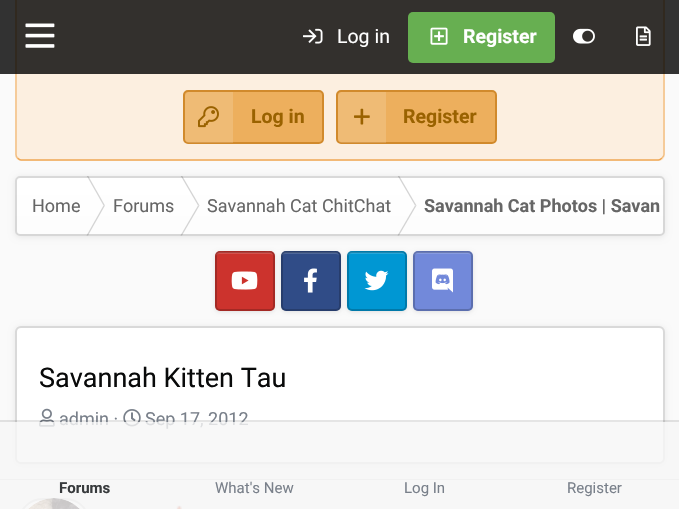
void draw(SkCanvas* canvas) {
	SkPaint fill;
	fill.setAntiAlias(true);
	auto makeFont = [&](const char* family, int weight, float size, bool italic = false) {
		SkFontStyle style(weight, SkFontStyle::kNormal_Width,
			italic ? SkFontStyle::kItalic_Slant : SkFontStyle::kUpright_Slant);
		SkFont result(fontMgr->matchFamilyStyle(family, style), size);
		result.setSubpixel(true);
		return result;
	};
	auto text = [&](const char* s, float x, float y, const SkFont& font) {
		canvas->drawString(s, x, y, font, fill);
	};
	auto box = [&](float l, float t, float r, float b) {
		canvas->drawRect(SkRect::MakeLTRB(l, t, r, b), fill);
	};
	auto roundBox = [&](float l, float t, float r, float b, float radius) {
		canvas->drawRoundRect(SkRect::MakeLTRB(l, t, r, b), radius, radius, fill);
	};
	auto picture = [&](const char* path, float l, float t, float r, float b) {
		auto image = SkImages::DeferredFromEncodedData(SkData::MakeFromFileName(path));
		canvas->drawImageRect(image, SkRect::MakeLTRB(l, t, r, b), SkSamplingOptions());
	};
	canvas->clear(0xFFFAFAFA);
	fill.setColor(0xFFFCEFE0);
	roundBox(15, -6, 665, 161, 6);
	fill.setStyle(SkPaint::kStroke_Style);
	fill.setStrokeWidth(1.5f);
	fill.setColor(0xFFEFA754);
	canvas->drawPath(SkPathBuilder().moveTo(662, 158).cubicTo(661, 159, 660, 160, 658.5f, 160).lineTo(21, 160).cubicTo(19.5f, 160, 18.5f, 159, 17.5f, 158).detach(), fill);
	fill.setColor(0xFFF3BF83);
	canvas->drawPath(SkPathBuilder().moveTo(17.5f, 158).cubicTo(16.5f, 157, 16, 156, 16, 154.5f).lineTo(16, -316.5f).cubicTo(16, -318, 16.5f, -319, 17.5f, -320).cubicTo(18.5f, -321, 19.5f, -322, 21, -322).lineTo(658.5f, -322).cubicTo(660, -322, 661, -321, 662, -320).cubicTo(663, -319, 664, -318, 664, -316.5f).lineTo(664, 154.5f).cubicTo(664, 156, 663, 157, 662, 158).detach(), fill);
	fill.setStyle(SkPaint::kFill_Style);
	fill.setColor(0xCC000000);
	box(0, 0, 679, 74);
	picture("image0.png", 25, 23, 55, 48);
	picture("image1.png", 303, 28, 323, 44);
	fill.setColor(0xFF67AF51);
	roundBox(408, 12, 555, 63, 5);
	picture("image2.png", 430, 27, 448, 45);
	picture("image3.png", 573, 28, 595, 44);
	picture("image4.png", 636, 26, 651, 46);
	fill.setColor(0xFFEDAF5D);
	canvas->drawRoundRect(SkRect::MakeLTRB(184, 91, 323, 143), 4, 4, fill);
	fill.setStyle(SkPaint::kStroke_Style);
	fill.setStrokeWidth(2);
	fill.setColor(0xFFD18A2C);
	canvas->drawRoundRect(SkRect::MakeLTRB(184, 91, 323, 143), 4, 4, fill);
	fill.setStyle(SkPaint::kFill_Style);
	fill.setColor(0x26FFFFFF);
	canvas->drawPath(SkPathBuilder().moveTo(190, 92).lineTo(233, 92).lineTo(233, 143).lineTo(190, 143).cubicTo(187, 143, 185, 141, 185, 138).lineTo(185, 97).cubicTo(185, 94, 187, 92, 190, 92).close().detach(), fill);
	picture("image5.png", 198, 106, 219, 128);
	fill.setColor(0xFFEDAF5D);
	canvas->drawRoundRect(SkRect::MakeLTRB(337, 91, 496, 143), 4, 4, fill);
	fill.setStyle(SkPaint::kStroke_Style);
	fill.setColor(0xFFD18A2C);
	canvas->drawRoundRect(SkRect::MakeLTRB(337, 91, 496, 143), 4, 4, fill);
	fill.setStyle(SkPaint::kFill_Style);
	fill.setColor(0x26FFFFFF);
	canvas->drawPath(SkPathBuilder().moveTo(343, 92).lineTo(386, 92).lineTo(386, 143).lineTo(343, 143).cubicTo(340, 143, 338, 141, 338, 138).lineTo(338, 97).cubicTo(338, 94, 340, 92, 343, 92).close().detach(), fill);
	picture("image6.png", 354, 108, 370, 125);
	fill.setColor(0x14000000);
	fill.setMaskFilter(SkMaskFilter::MakeBlur(kNormal_SkBlurStyle, 3));
	canvas->drawRoundRect(SkRect::MakeLTRB(15, 177, 665, 237), 5, 5, fill);
	fill.setMaskFilter(nullptr);
	fill.setColor(0xFFFDFDFD);
	roundBox(15, 176, 665, 236, 5);
	{
		const SkColor colors[] = {0xFFFFFFFF, 0x00FFFFFF};
		const float stops[] = {0, 1};
		const SkPoint ends[] = {{340, 175}, {340, 236}};
		fill.setShader(SkGradientShader::MakeLinear(ends, colors, stops, 2, SkTileMode::kClamp));
		fill.setAlpha(255);
	}
	roundBox(15, 176, 665, 236, 5);
	canvas->save();
	canvas->clipRect(SkRect::MakeLTRB(15, 176, 665, 236));
	fill.setShader(nullptr);
	fill.setColor(0xFFD5D5D5);
	canvas->drawPath(SkPathBuilder().moveTo(86.5f, 175.5f).lineTo(88, 175.5f).lineTo(105, 205.5f).lineTo(103.5f, 205.5f).close().detach(), fill);
	canvas->restore();
	fill.setColor(0xFFD4D4D4);
	canvas->drawPath(SkPathBuilder().moveTo(103.5f, 205.5f).lineTo(105, 205.5f).lineTo(88, 235.5f).lineTo(86.5f, 235.5f).close().detach(), fill);
	canvas->save();
	canvas->clipRect(SkRect::MakeLTRB(15, 176, 665, 236));
	canvas->drawPath(SkPathBuilder().moveTo(180.5f, 175.5f).lineTo(182, 175.5f).lineTo(199.5f, 205.5f).lineTo(198, 205.5f).close().detach(), fill);
	canvas->restore();
	canvas->drawPath(SkPathBuilder().moveTo(198, 205.5f).lineTo(199.5f, 205.5f).lineTo(182, 235.5f).lineTo(180.5f, 235.5f).close().detach(), fill);
	canvas->save();
	canvas->clipRect(SkRect::MakeLTRB(15, 176, 665, 236));
	canvas->drawPath(SkPathBuilder().moveTo(397.5f, 175.5f).lineTo(399, 175.5f).lineTo(416.5f, 205.5f).lineTo(415, 205.5f).close().detach(), fill);
	canvas->restore();
	canvas->drawPath(SkPathBuilder().moveTo(415, 205.5f).lineTo(416.5f, 205.5f).lineTo(399, 235.5f).lineTo(397.5f, 235.5f).close().detach(), fill);
	fill.setStyle(SkPaint::kStroke_Style);
	fill.setColor(0x26000000);
	canvas->drawRoundRect(SkRect::MakeLTRB(16, 177, 664, 235), 4, 4, fill);
	fill.setStyle(SkPaint::kFill_Style);
	fill.setColor(0x1A000000);
	fill.setMaskFilter(SkMaskFilter::MakeBlur(kNormal_SkBlurStyle, 2));
	canvas->drawRoundRect(SkRect::MakeLTRB(215, 252, 275, 312), 5, 5, fill);
	fill.setMaskFilter(nullptr);
	fill.setColor(0xFFCC332D);
	roundBox(215, 251, 275, 311, 5);
	fill.setColor(0xFFD4524D);
	canvas->drawPath(SkPathBuilder().moveTo(219, 254).lineTo(270, 254).cubicTo(272, 254, 273, 255, 273, 256).cubicTo(273, 250, 266, 252, 262, 252).lineTo(228, 252).cubicTo(223, 252, 216, 250, 216, 256).cubicTo(216, 255, 217, 254, 219, 254).close().detach(), fill);
	picture("image7.png", 231, 271, 258, 290);
	fill.setStyle(SkPaint::kStroke_Style);
	fill.setColor(0x33000000);
	canvas->drawRoundRect(SkRect::MakeLTRB(216, 252, 274, 310), 4, 4, fill);
	fill.setStyle(SkPaint::kFill_Style);
	fill.setColor(0x1A000000);
	fill.setMaskFilter(SkMaskFilter::MakeBlur(kNormal_SkBlurStyle, 2));
	canvas->drawRoundRect(SkRect::MakeLTRB(281, 252, 341, 312), 5, 5, fill);
	fill.setMaskFilter(nullptr);
	fill.setColor(0xFF304C87);
	roundBox(281, 251, 341, 311, 5);
	fill.setColor(0xFF4F6799);
	canvas->drawPath(SkPathBuilder().moveTo(285, 254).lineTo(336, 254).cubicTo(338, 254, 339, 255, 339, 256).cubicTo(339, 250, 332, 252, 328, 252).lineTo(294, 252).cubicTo(289, 252, 282, 250, 282, 256).cubicTo(282, 255, 283, 254, 285, 254).close().detach(), fill);
	picture("image8.png", 304, 268, 317, 293);
	fill.setStyle(SkPaint::kStroke_Style);
	fill.setColor(0x33000000);
	canvas->drawRoundRect(SkRect::MakeLTRB(282, 252, 340, 310), 4, 4, fill);
	fill.setStyle(SkPaint::kFill_Style);
	fill.setColor(0x1A000000);
	fill.setMaskFilter(SkMaskFilter::MakeBlur(kNormal_SkBlurStyle, 2));
	canvas->drawRoundRect(SkRect::MakeLTRB(347, 252, 407, 312), 5, 5, fill);
	fill.setMaskFilter(nullptr);
	fill.setColor(0xFF0097D3);
	roundBox(347, 251, 407, 311, 5);
	fill.setColor(0xFF26A7DA);
	canvas->drawPath(SkPathBuilder().moveTo(351, 254).lineTo(402, 254).cubicTo(404, 254, 405, 255, 405, 256).cubicTo(405, 250, 398, 252, 394, 252).lineTo(360, 252).cubicTo(355, 252, 348, 250, 348, 256).cubicTo(348, 255, 349, 254, 351, 254).close().detach(), fill);
	picture("image9.png", 364, 270, 389, 291);
	fill.setStyle(SkPaint::kStroke_Style);
	fill.setColor(0x33000000);
	canvas->drawRoundRect(SkRect::MakeLTRB(348, 252, 406, 310), 4, 4, fill);
	fill.setStyle(SkPaint::kFill_Style);
	fill.setColor(0x1A000000);
	fill.setMaskFilter(SkMaskFilter::MakeBlur(kNormal_SkBlurStyle, 2));
	canvas->drawRoundRect(SkRect::MakeLTRB(413, 252, 473, 312), 5, 5, fill);
	fill.setMaskFilter(nullptr);
	fill.setColor(0xFF7289DA);
	roundBox(413, 251, 473, 311, 5);
	fill.setColor(0xFF879BE0);
	canvas->drawPath(SkPathBuilder().moveTo(417, 254).lineTo(468, 254).cubicTo(470, 254, 471, 255, 471, 256).cubicTo(471, 250, 464, 252, 460, 252).lineTo(426, 252).cubicTo(421, 252, 414, 250, 414, 256).cubicTo(414, 255, 415, 254, 417, 254).close().detach(), fill);
	picture("image10.png", 432, 268, 453, 293);
	fill.setStyle(SkPaint::kStroke_Style);
	fill.setColor(0x33000000);
	canvas->drawRoundRect(SkRect::MakeLTRB(414, 252, 472, 310), 4, 4, fill);
	fill.setStyle(SkPaint::kFill_Style);
	fill.setColor(0x14000000);
	fill.setMaskFilter(SkMaskFilter::MakeBlur(kNormal_SkBlurStyle, 3));
	canvas->drawRoundRect(SkRect::MakeLTRB(15, 327, 665, 465), 6, 6, fill);
	fill.setMaskFilter(nullptr);
	fill.setColor(0xFFFFFFFF);
	roundBox(15, 326, 665, 464, 6);
	fill.setStyle(SkPaint::kStroke_Style);
	fill.setColor(0x26000000);
	canvas->drawRoundRect(SkRect::MakeLTRB(16, 327, 664, 463), 5, 5, fill);
	picture("image11.png", 39, 408, 55, 427);
	picture("image12.png", 123, 409, 141, 427);
	fill.setStyle(SkPaint::kFill_Style);
	fill.setColor(0xFFD9D9D9);
	box(0, 479, 679, 480);
	fill.setColor(0xFFF6F6F6);
	box(0, 480, 679, 509);
	fill.setColor(0xFFFFFFFF);
	roundBox(18, 498, 90, 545, 36);
	picture("image13.png", 28, 498, 80, 509);
	fill.setStyle(SkPaint::kStroke_Style);
	fill.setColor(0x26090A0A);
	canvas->drawRoundRect(SkRect::MakeLTRB(19, 499, 89, 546), 35, 35, fill);
	picture("image14.png", 176, 505, 182, 509);
	fill.setStyle(SkPaint::kFill_Style);
	fill.setColor(0x1A000000);
	canvas->drawPath(SkPathBuilder().moveTo(0, 420).lineTo(0, 422).lineTo(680, 422).lineTo(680, 509).lineTo(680, 420).close().detach(), fill);
	auto font1 = makeFont("Roboto", 400, 19.5f);
	fill.setColor(0xFFFFFFFF);
	text("Log in", 337, 43, font1);
	auto font2 = makeFont("Roboto", 700, 19.5f);
	text("Register", 463, 43, font2);
	fill.setColor(0xFF9A6200);
	text("Log in", 251, 123, font2);
	text("Register", 403, 123, font2);
	auto font3 = makeFont("Roboto", 400, 18);
	fill.setColor(0xFF666666);
	text("Home", 32, 212, font3);
	text("Forums", 113, 212, font3);
	text("Savannah Cat ChitChat", 207, 212, font3);
	auto font4 = makeFont("Roboto", 700, 18);
	text("Savannah Cat Photos | Savan", 424, 212, font4);
	auto font5 = makeFont("Roboto", 400, 27);
	fill.setColor(0xFF090A0A);
	text("Savannah Kitten Tau", 39, 387, font5);
	fill.setColor(0xFF79808A);
	text("admin ·", 59, 425, font3);
	text("Sep 17, 2012", 145, 425, font3);
	fill.setColor(0xCCF6F6F6);
	box(0, 422, 679, 509);
	auto font6 = makeFont("Roboto", 700, 15);
	fill.setColor(0xFF383B3D);
	text("Forums", 59, 493, font6);
	auto font7 = makeFont("Roboto", 400, 15);
	fill.setColor(0xFF79808A);
	text("What's New", 215, 493, font7);
	text("Log In", 404, 493, font7);
	text("Register", 567, 493, font7);
}
